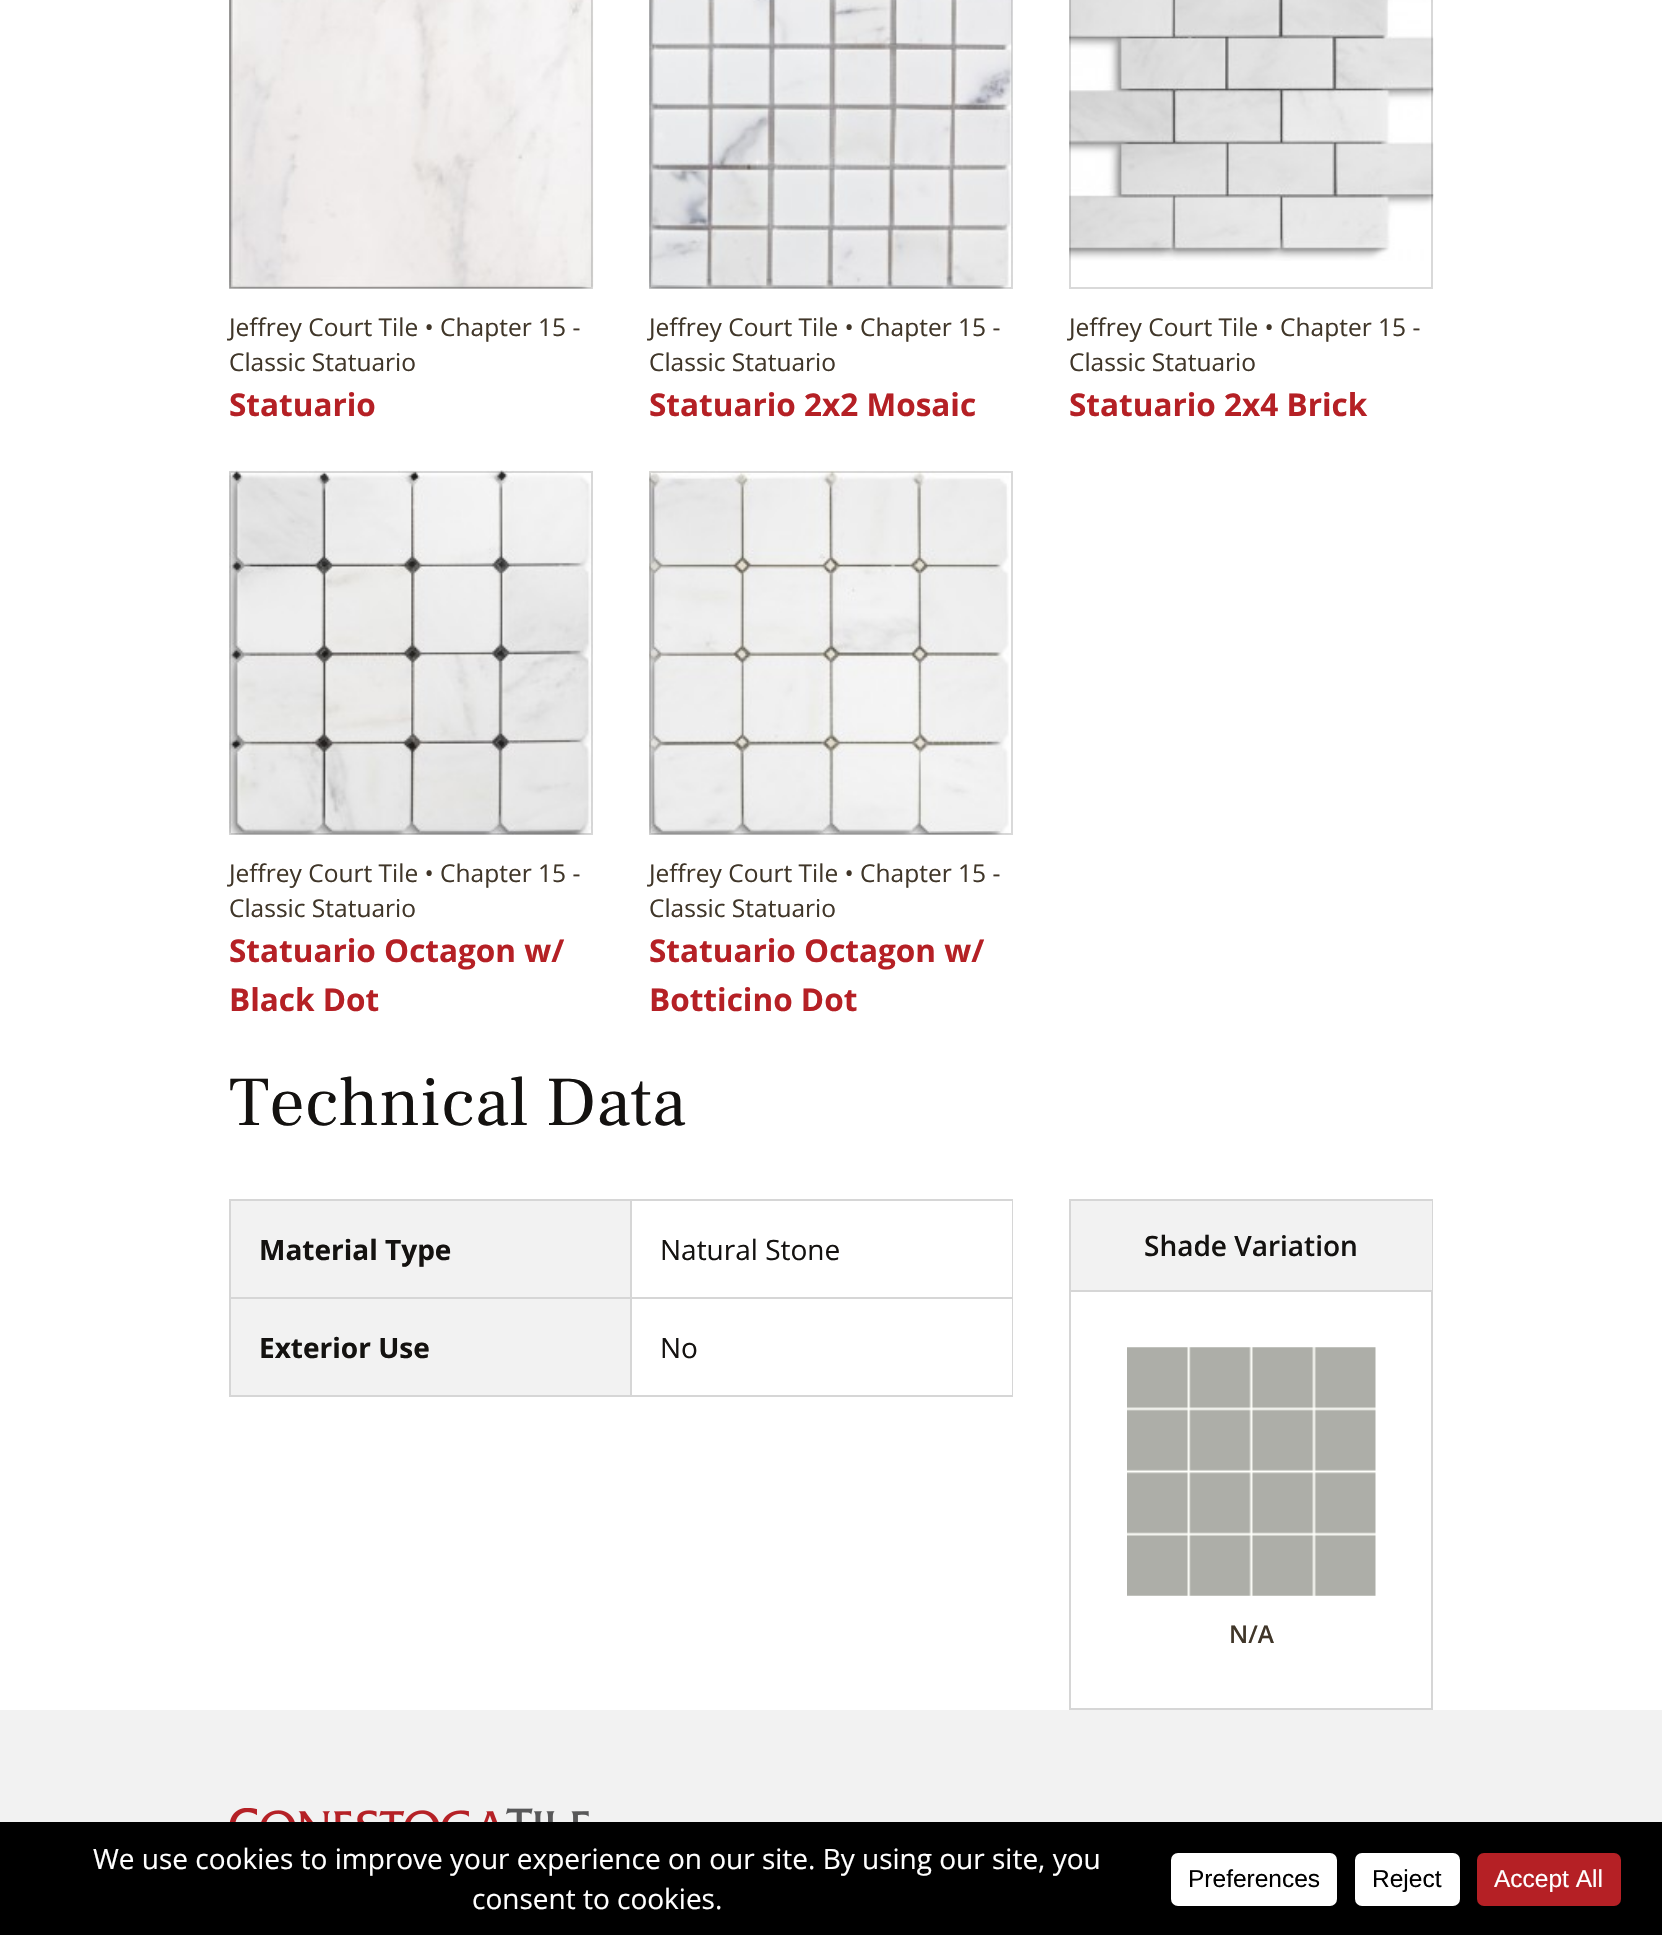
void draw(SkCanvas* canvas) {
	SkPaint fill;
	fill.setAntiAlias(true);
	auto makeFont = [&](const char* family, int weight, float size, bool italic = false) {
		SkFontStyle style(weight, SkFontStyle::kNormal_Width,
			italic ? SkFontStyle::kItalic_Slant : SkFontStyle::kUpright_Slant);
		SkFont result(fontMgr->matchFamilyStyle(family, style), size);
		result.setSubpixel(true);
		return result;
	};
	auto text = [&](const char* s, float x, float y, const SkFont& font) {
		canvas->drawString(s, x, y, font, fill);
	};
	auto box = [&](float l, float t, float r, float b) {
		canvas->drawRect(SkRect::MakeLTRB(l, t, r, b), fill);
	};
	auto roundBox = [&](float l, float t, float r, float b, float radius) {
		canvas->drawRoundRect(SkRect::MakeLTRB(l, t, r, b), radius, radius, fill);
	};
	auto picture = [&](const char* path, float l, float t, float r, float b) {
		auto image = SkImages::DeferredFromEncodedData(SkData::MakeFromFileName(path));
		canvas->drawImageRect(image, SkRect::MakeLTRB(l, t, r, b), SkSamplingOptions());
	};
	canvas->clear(0xFFFFFFFF);
	picture("image0.png", 229, 0, 594, 289);
	fill.setStyle(SkPaint::kStroke_Style);
	fill.setStrokeWidth(2);
	fill.setColor(0x26000000);
	canvas->drawRect(SkRect::MakeLTRB(230, -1, 592, 288), fill);
	picture("image1.png", 649, 0, 1013, 289);
	canvas->drawRect(SkRect::MakeLTRB(650, -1, 1012, 288), fill);
	picture("image2.png", 1069, 0, 1434, 261);
	canvas->drawRect(SkRect::MakeLTRB(1070, -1, 1432, 288), fill);
	picture("image3.png", 229, 470, 593, 835);
	canvas->drawRect(SkRect::MakeLTRB(230, 472, 592, 834), fill);
	picture("image4.png", 649, 470, 1009, 835);
	canvas->drawRect(SkRect::MakeLTRB(650, 472, 1012, 834), fill);
	fill.setStyle(SkPaint::kFill_Style);
	fill.setColor(0xFFF2F2F2);
	box(231, 1201, 630, 1297);
	fill.setColor(0xFFD6D6D6);
	box(630, 1199, 1013, 1201);
	box(630, 1297, 1013, 1299);
	box(1012, 1297, 1013, 1397);
	box(630, 1395, 1013, 1397);
	box(630, 1297, 632, 1397);
	box(229, 1297, 632, 1299);
	box(630, 1199, 632, 1299);
	box(229, 1199, 632, 1201);
	box(229, 1395, 632, 1397);
	box(229, 1297, 231, 1397);
	box(229, 1199, 231, 1299);
	box(1012, 1199, 1013, 1299);
	fill.setColor(0xFFF2F2F2);
	box(231, 1299, 630, 1395);
	fill.setStyle(SkPaint::kStroke_Style);
	fill.setColor(0xFFD6D6D6);
	canvas->drawRect(SkRect::MakeLTRB(1070, 1200, 1432, 1709), fill);
	fill.setStyle(SkPaint::kFill_Style);
	fill.setColor(0xFFF2F2F2);
	box(1071, 1201, 1432, 1290);
	fill.setColor(0xFFD6D6D6);
	box(1071, 1290, 1432, 1292);
	picture("image5.png", 1127, 1347, 1376, 1596);
	fill.setColor(0xFFF2F2F2);
	box(0, 1710, 1662, 1822);
	picture("image6.png", 229, 1808, 589, 1822);
	fill.setColor(0xFF000000);
	box(0, 1822, 1662, 1935);
	fill.setColor(0xFFFFFFFF);
	roundBox(1171, 1853, 1337, 1906, 7);
	roundBox(1355, 1853, 1460, 1906, 7);
	fill.setColor(0xFFB52025);
	roundBox(1477, 1853, 1621, 1906, 7);
	auto font1 = makeFont("Open Sans", 400, 24.5f);
	fill.setColor(0xFF403629);
	text("Jeffrey Court Tile • Chapter 15 -", 229, 336, font1);
	text("Classic Statuario", 229, 371, font1);
	auto font2 = makeFont("Open Sans", 700, 31.5f);
	fill.setColor(0xFFB52025);
	text("Statuario", 229, 416, font2);
	fill.setColor(0xFF403629);
	text("Jeffrey Court Tile • Chapter 15 -", 649, 336, font1);
	text("Classic Statuario", 649, 371, font1);
	fill.setColor(0xFFB52025);
	text("Statuario 2x2 Mosaic", 649, 416, font2);
	fill.setColor(0xFF403629);
	text("Jeffrey Court Tile • Chapter 15 -", 1069, 336, font1);
	text("Classic Statuario", 1069, 371, font1);
	fill.setColor(0xFFB52025);
	text("Statuario 2x4 Brick", 1069, 416, font2);
	fill.setColor(0xFF403629);
	text("Jeffrey Court Tile • Chapter 15 -", 229, 882, font1);
	text("Classic Statuario", 229, 917, font1);
	fill.setColor(0xFFB52025);
	text("Statuario Octagon w/", 229, 962, font2);
	text("Black Dot", 229, 1011, font2);
	fill.setColor(0xFF403629);
	text("Jeffrey Court Tile • Chapter 15 -", 649, 882, font1);
	text("Classic Statuario", 649, 917, font1);
	fill.setColor(0xFFB52025);
	text("Statuario Octagon w/", 649, 962, font2);
	text("Botticino Dot", 649, 1011, font2);
	auto font3 = makeFont("Frank Ruhl Libre", 400, 70);
	fill.setColor(0xFF141210);
	text("Technical Data", 229, 1125, font3);
	auto font4 = makeFont("Open Sans", 700, 28);
	text("Material Type", 259, 1260, font4);
	auto font5 = makeFont("Open Sans", 400, 28);
	text("Natural Stone", 660, 1260, font5);
	text("Exterior Use", 259, 1358, font4);
	text("No", 660, 1358, font5);
	auto font6 = makeFont("Open Sans", 600, 28);
	text("Shade Variation", 1144, 1256, font6);
	auto font7 = makeFont("Open Sans", 600, 24.5f);
	fill.setColor(0xFF403629);
	text("N/A", 1229, 1643, font7);
	fill.setColor(0xFFFFFFFF);
	text("We use cookies to improve your experience on our site. By using our site, you", 93, 1869, font5);
	text("consent to cookies.", 472, 1909, font5);
	auto font8 = makeFont("Liberation Sans", 400, 24.5f);
	fill.setColor(0xFF000000);
	text("Preferences", 1188, 1887, font8);
	text("Reject", 1372, 1887, font8);
	fill.setColor(0xFFFFFFFF);
	text("Accept All", 1494, 1887, font8);
}
